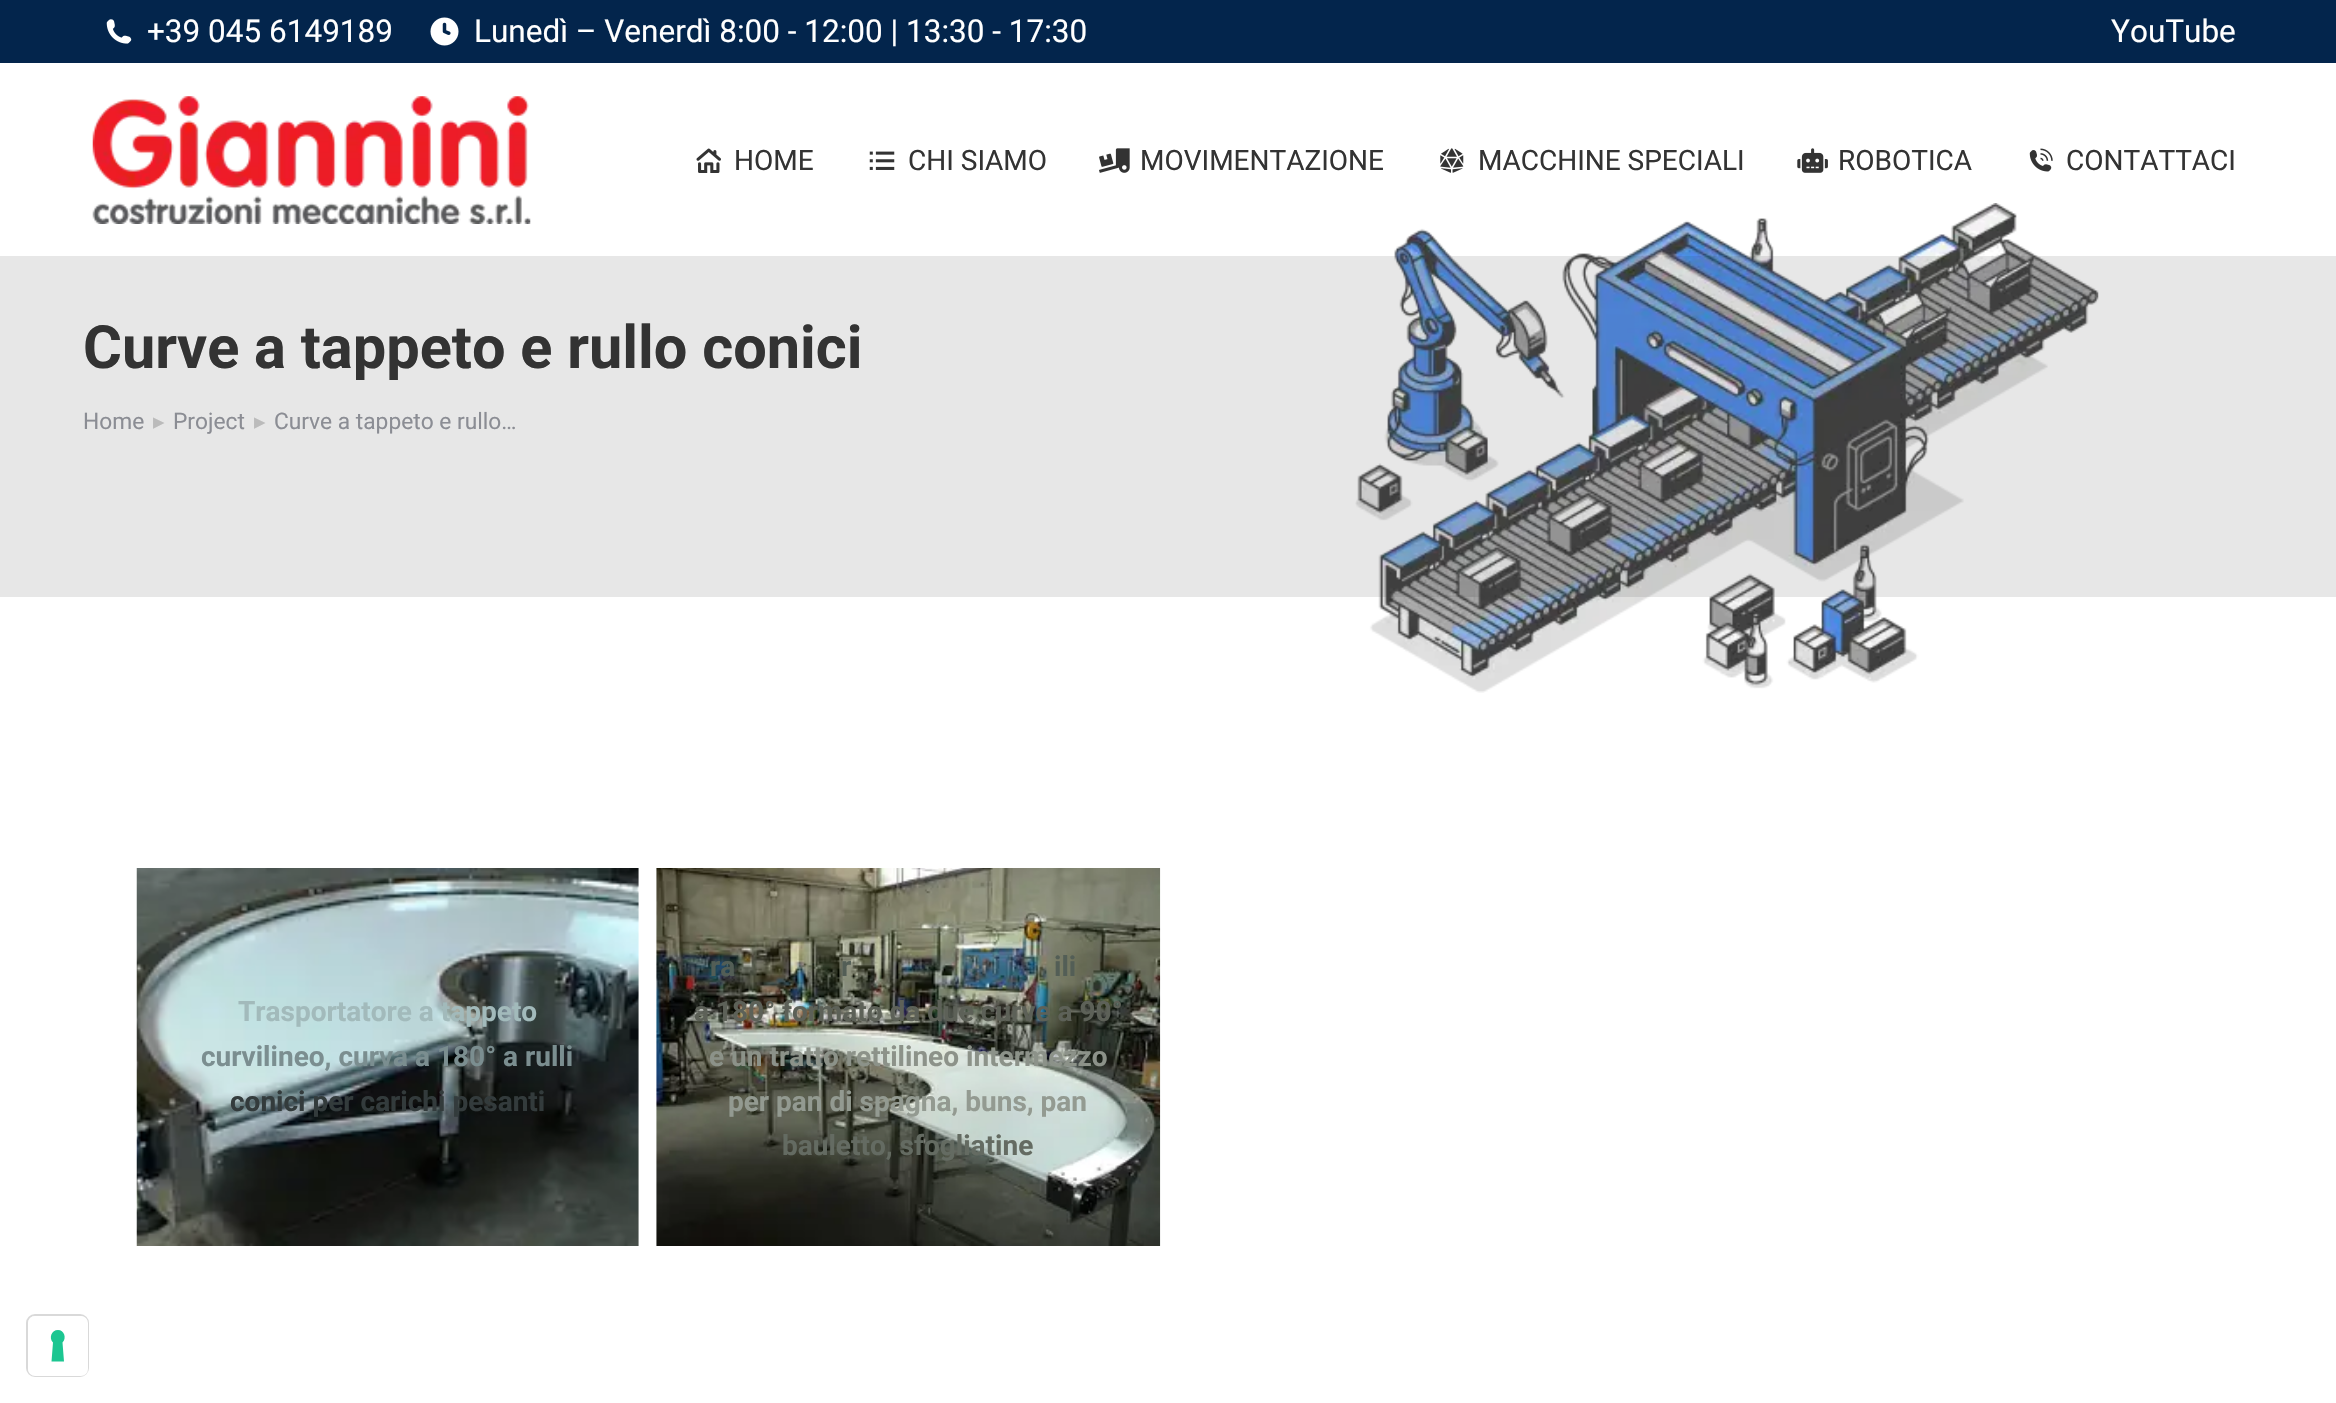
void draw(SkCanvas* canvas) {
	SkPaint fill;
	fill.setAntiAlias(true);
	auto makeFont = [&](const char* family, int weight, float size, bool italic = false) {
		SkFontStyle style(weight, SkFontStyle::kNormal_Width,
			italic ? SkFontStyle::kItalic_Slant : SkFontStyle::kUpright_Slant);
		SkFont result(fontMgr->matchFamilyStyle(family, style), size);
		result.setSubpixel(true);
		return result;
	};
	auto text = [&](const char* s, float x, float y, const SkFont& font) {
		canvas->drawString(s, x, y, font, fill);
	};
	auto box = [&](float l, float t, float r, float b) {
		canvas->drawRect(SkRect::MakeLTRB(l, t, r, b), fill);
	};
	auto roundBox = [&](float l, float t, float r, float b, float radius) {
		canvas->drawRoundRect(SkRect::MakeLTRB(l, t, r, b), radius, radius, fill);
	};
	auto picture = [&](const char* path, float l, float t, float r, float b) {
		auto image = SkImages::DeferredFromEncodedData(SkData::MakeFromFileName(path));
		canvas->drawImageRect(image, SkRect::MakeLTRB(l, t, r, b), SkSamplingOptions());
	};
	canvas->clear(0xFFFFFFFF);
	fill.setColor(0xFF03254C);
	box(0, 0, 2336, 63);
	picture("image0.png", 106, 19, 132, 44);
	picture("image1.png", 430, 17, 459, 46);
	picture("image2.png", 92, 96, 531, 224);
	picture("image3.png", 696, 148, 721, 173);
	picture("image4.png", 869, 151, 895, 170);
	picture("image5.png", 1099, 148, 1130, 173);
	picture("image6.png", 1440, 148, 1464, 173);
	picture("image7.png", 1797, 148, 1828, 173);
	picture("image8.png", 2029, 148, 2053, 172);
	picture("image9.png", 1355, 203, 2099, 693);
	fill.setColor(0x1F363636);
	box(0, 256, 2336, 597);
	picture("image10.png", 136, 868, 639, 1246);
	picture("image11.png", 656, 868, 1161, 1246);
	fill.setStyle(SkPaint::kStroke_Style);
	fill.setStrokeWidth(2);
	fill.setColor(0xFFD9D9D9);
	canvas->drawRoundRect(SkRect::MakeLTRB(27, 1315, 88, 1376), 8, 8, fill);
	fill.setStyle(SkPaint::kFill_Style);
	fill.setColor(0xFFFFFFFF);
	roundBox(28, 1316, 88, 1376, 7);
	fill.setColor(0xFF1CC691);
	canvas->drawPath(SkPathBuilder(SkPathFillType::kEvenOdd).moveTo(58, 1330).cubicTo(64, 1330, 67, 1338, 62.5f, 1342.5f).lineTo(64, 1361.5f).lineTo(51.5f, 1361.5f).lineTo(53, 1342.5f).cubicTo(48.5f, 1338, 51.5f, 1330, 58, 1330).close().detach(), fill);
	auto font1 = makeFont("Roboto", 400, 31.5f);
	fill.setColor(0xFFFFFFFF);
	text("+39 045 6149189", 147, 42, font1);
	text("Lunedì – Venerdì 8:00 - 12:00 | 13:30 - 17:30", 474, 42, font1);
	text("YouTube", 2111, 42, font1);
	auto font2 = makeFont("Roboto", 400, 28);
	fill.setColor(0xFF333333);
	text("HOME", 734, 170, font2);
	text("CHI SIAMO", 908, 170, font2);
	text("MOVIMENTAZIONE", 1140, 170, font2);
	text("MACCHINE SPECIALI", 1478, 170, font2);
	text("ROBOTICA", 1838, 170, font2);
	text("CONTATTACI", 2066, 170, font2);
	auto font3 = makeFont("Roboto", 700, 59.5f);
	text("Curve a tappeto e rullo conici", 83, 368, font3);
	auto font4 = makeFont("Roboto", 400, 22.75f);
	fill.setColor(0xFF8B8D94);
	text("Home", 83, 429, font4);
	auto font5 = makeFont("DejaVu Sans", 400, 22.75f);
	fill.setColor(0xFFBBBBBB);
	text("▸", 153, 429, font5);
	fill.setColor(0xFF8B8D94);
	text("Project", 173, 429, font4);
	fill.setColor(0xFFBBBBBB);
	text("▸", 254, 429, font5);
	fill.setColor(0xFF8B8D94);
	text("Curve a tappeto e rullo…", 274, 429, font4);
	auto font6 = makeFont("Roboto", 700, 28);
	fill.setColor(0xFFA2BABB);
	text("Trasportatore a tappeto", 238, 1021, font6);
	fill.setColor(0xFF7B8E90);
	text("curvilineo, curva a 180° a rulli", 201, 1066, font6);
	fill.setColor(0xFF333B3C);
	text("conici per carichi pesanti", 230, 1111, font6);
	fill.setColor(0xFF535E56);
	text("ra", 710, 976, font6);
	text("r", 841, 976, font6);
	text("ili", 1054, 976, font6);
	fill.setColor(0xFF5D6158);
	text("a 180° formato da due curve a 90°", 694, 1021, font6);
	fill.setColor(0xFF8C9289);
	text("e un tratto rettilineo intermezzo", 709, 1066, font6);
	fill.setColor(0xFF939A91);
	text("per pan di spagna, buns, pan", 728, 1111, font6);
	fill.setColor(0xFF646B62);
	text("bauletto, sfogliatine", 782, 1155, font6);
}
